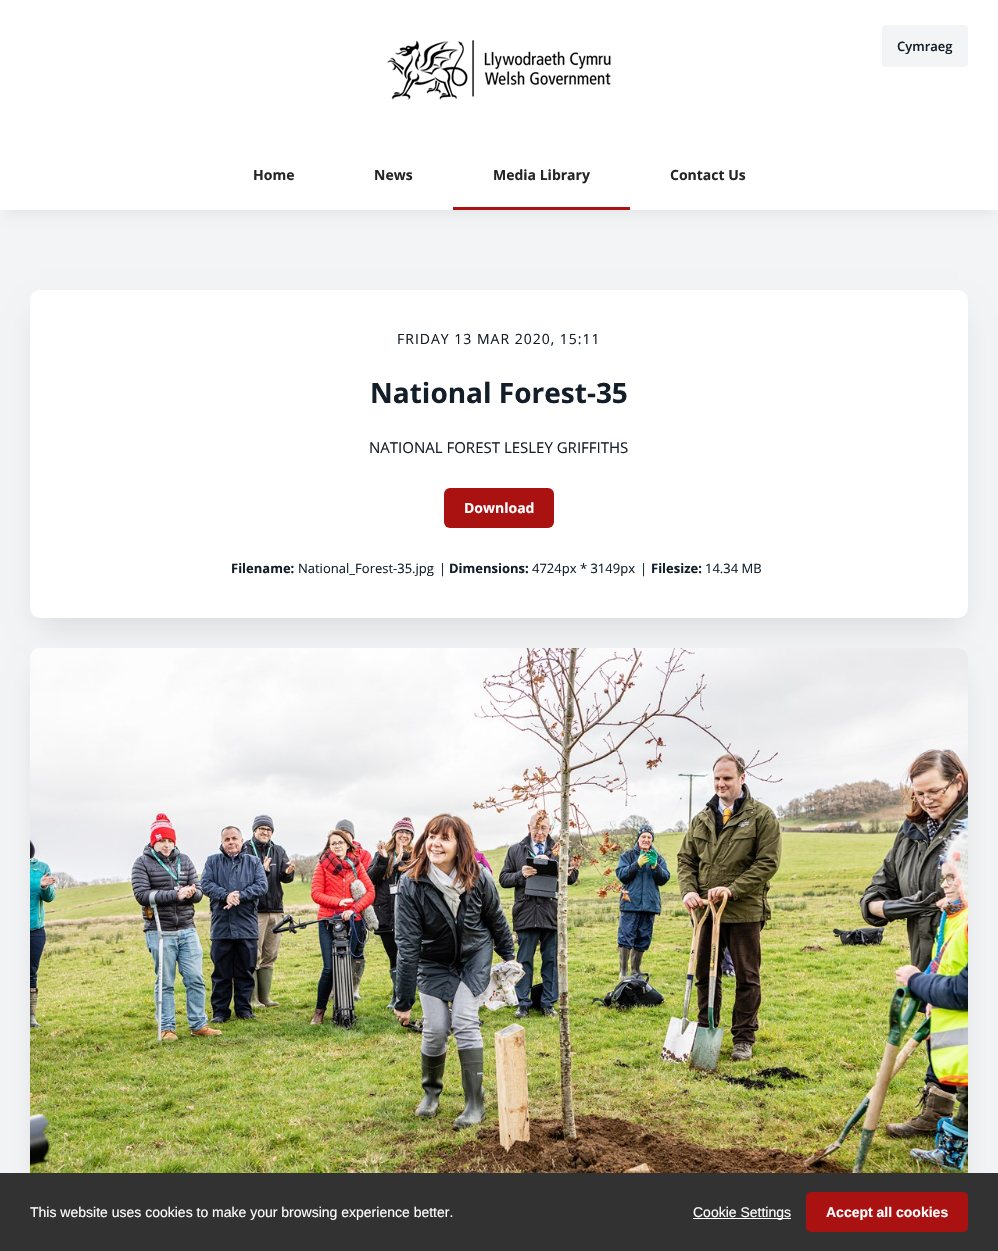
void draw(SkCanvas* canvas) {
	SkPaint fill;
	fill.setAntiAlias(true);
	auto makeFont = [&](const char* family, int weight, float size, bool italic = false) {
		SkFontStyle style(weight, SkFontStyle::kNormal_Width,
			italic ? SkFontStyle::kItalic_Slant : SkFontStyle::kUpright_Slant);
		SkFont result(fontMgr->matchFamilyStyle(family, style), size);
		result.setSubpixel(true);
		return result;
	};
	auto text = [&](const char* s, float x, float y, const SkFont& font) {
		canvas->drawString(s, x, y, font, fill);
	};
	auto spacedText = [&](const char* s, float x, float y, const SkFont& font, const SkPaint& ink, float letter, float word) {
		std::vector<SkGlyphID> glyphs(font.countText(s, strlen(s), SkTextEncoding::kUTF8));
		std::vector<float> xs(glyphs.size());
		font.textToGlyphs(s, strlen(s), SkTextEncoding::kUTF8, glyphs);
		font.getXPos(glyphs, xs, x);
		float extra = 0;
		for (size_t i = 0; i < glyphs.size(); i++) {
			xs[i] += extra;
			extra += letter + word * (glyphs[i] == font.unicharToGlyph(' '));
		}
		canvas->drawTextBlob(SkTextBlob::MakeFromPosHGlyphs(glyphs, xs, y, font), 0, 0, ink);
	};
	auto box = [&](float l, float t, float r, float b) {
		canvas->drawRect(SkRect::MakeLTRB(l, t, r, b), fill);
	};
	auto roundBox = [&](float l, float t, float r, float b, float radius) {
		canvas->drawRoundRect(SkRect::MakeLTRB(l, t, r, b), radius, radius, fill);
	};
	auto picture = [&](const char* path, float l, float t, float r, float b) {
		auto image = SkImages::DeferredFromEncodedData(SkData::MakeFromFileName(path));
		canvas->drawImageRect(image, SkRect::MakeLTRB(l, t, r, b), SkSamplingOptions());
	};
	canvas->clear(0xFFF2F4F5);
	fill.setColor(0xFFFFFFFF);
	box(0, 0, 998, 140);
	picture("image0.png", 387, 40, 611, 100);
	fill.setColor(0xFFF2F4F5);
	roundBox(882, 25, 968, 67, 4);
	fill.setColor(0x0D000000);
	fill.setMaskFilter(SkMaskFilter::MakeBlur(kNormal_SkBlurStyle, 5));
	canvas->drawRect(SkRect::MakeLTRB(5, 155, 993, 215), fill);
	fill.setMaskFilter(nullptr);
	fill.setColor(0xFFFFFFFF);
	box(0, 140, 998, 210);
	fill.setColor(0xFFAA1111);
	box(453, 207, 630, 210);
	fill.setColor(0x1F000000);
	fill.setMaskFilter(SkMaskFilter::MakeBlur(kNormal_SkBlurStyle, 15));
	canvas->drawRect(SkRect::MakeLTRB(40, 315, 958, 623), fill);
	fill.setMaskFilter(nullptr);
	fill.setColor(0xFFFFFFFF);
	roundBox(30, 290, 968, 618, 10);
	fill.setColor(0xFFAA1111);
	roundBox(444, 488, 554, 528, 6);
	fill.setColor(0x1F000000);
	fill.setMaskFilter(SkMaskFilter::MakeBlur(kNormal_SkBlurStyle, 15));
	canvas->drawRect(SkRect::MakeLTRB(40, 673, 958, 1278), fill);
	fill.setMaskFilter(nullptr);
	fill.setColor(0xFFFFFFFF);
	roundBox(30, 648, 968, 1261, 10);
	picture("image1.png", 30, 648, 968, 1173);
	fill.setColor(0xFF323232);
	box(0, 1173, 998, 1251);
	fill.setColor(0xFFFFFFFF);
	box(693, 1218, 791, 1219);
	fill.setColor(0xFFAA1111);
	roundBox(806, 1192, 968, 1232, 5);
	auto font1 = makeFont("Open Sans", 600, 13);
	fill.setColor(0xFF131E29);
	text("Cymraeg", 897, 51, font1);
	auto font2 = makeFont("Open Sans", 700, 14);
	fill.setColor(0xFF262626);
	text("Home", 253, 180, font2);
	text("News", 374, 180, font2);
	text("Media Library", 493, 180, font2);
	text("Contact Us", 670, 180, font2);
	auto font3 = makeFont("Open Sans", 400, 14);
	fill.setColor(0xFF131E29);
	spacedText("FRIDAY 13 MAR 2020, 15:11", 397, 344, font3, fill, 1, 0);
	auto font4 = makeFont("Open Sans", 700, 28);
	text("National Forest-35", 370, 403, font4);
	auto font5 = makeFont("Open Sans", 400, 15);
	text("NATIONAL FOREST LESLEY GRIFFITHS", 369, 453, font5);
	fill.setColor(0xFFFFFFFF);
	text("Download", 464, 513, font2);
	auto font6 = makeFont("Open Sans", 700, 13);
	fill.setColor(0xFF131E29);
	text("Filename:", 231, 573, font6);
	auto font7 = makeFont("Open Sans", 400, 13);
	text("National_Forest-35.jpg", 298, 573, font7);
	text("|", 439, 573, font7);
	text("Dimensions:", 449, 573, font6);
	text("4724px * 3149px", 532, 573, font7);
	text("|", 640, 573, font7);
	text("Filesize:", 651, 573, font6);
	text("14.34 MB", 705, 573, font7);
	auto font8 = makeFont("Liberation Sans", 400, 14);
	fill.setColor(0xFFFFFFFF);
	text("This website uses cookies to make your browsing experience better.", 30, 1217, font8);
	text("Cookie Settings", 693, 1217, font8);
	auto font9 = makeFont("Liberation Sans", 700, 14);
	text("Accept all cookies", 826, 1217, font9);
}
